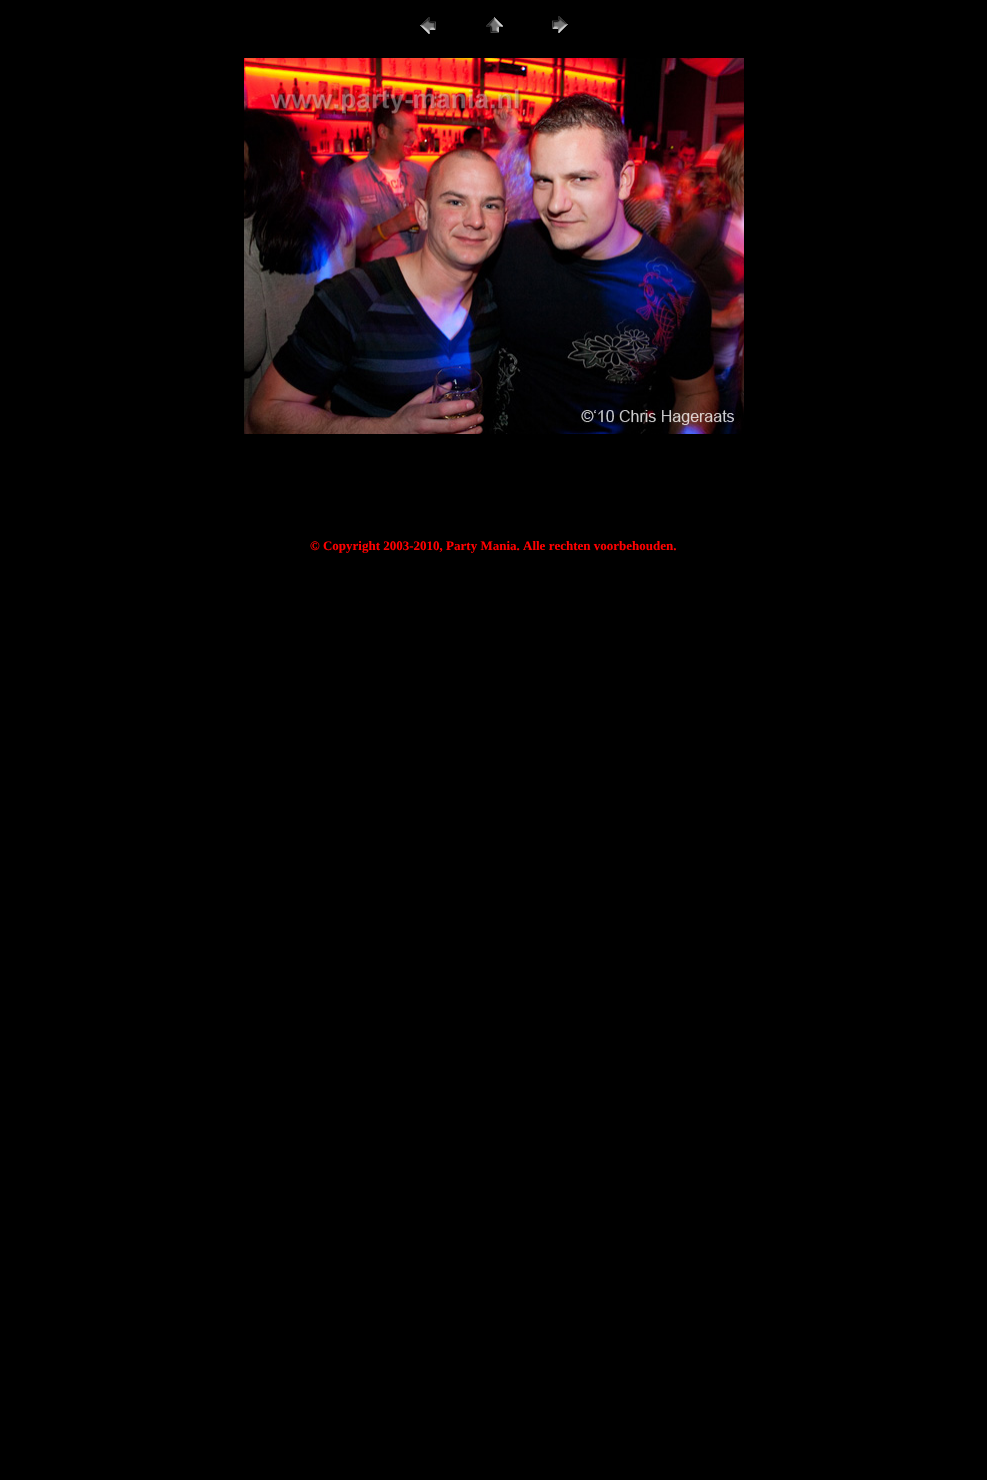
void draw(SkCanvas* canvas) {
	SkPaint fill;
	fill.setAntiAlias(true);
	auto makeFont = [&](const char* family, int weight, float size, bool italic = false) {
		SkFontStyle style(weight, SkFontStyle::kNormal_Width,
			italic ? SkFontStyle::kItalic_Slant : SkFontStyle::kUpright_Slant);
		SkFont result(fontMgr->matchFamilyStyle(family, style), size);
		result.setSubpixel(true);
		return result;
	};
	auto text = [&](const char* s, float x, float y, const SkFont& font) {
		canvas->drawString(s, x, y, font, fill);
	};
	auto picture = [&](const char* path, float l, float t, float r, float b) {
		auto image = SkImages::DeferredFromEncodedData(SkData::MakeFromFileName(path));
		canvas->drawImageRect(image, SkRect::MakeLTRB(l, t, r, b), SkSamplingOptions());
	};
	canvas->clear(0xFF000000);
	picture("image0.png", 420, 17, 436, 34);
	picture("image1.png", 486, 17, 503, 33);
	picture("image2.png", 552, 16, 568, 33);
	picture("image3.png", 244, 58, 744, 434);
	auto font1 = makeFont("Liberation Serif", 700, 13);
	fill.setColor(0xFFFF0000);
	text("© Copyright 2003-2010, Party Mania. Alle rechten voorbehouden.", 310, 550, font1);
}
